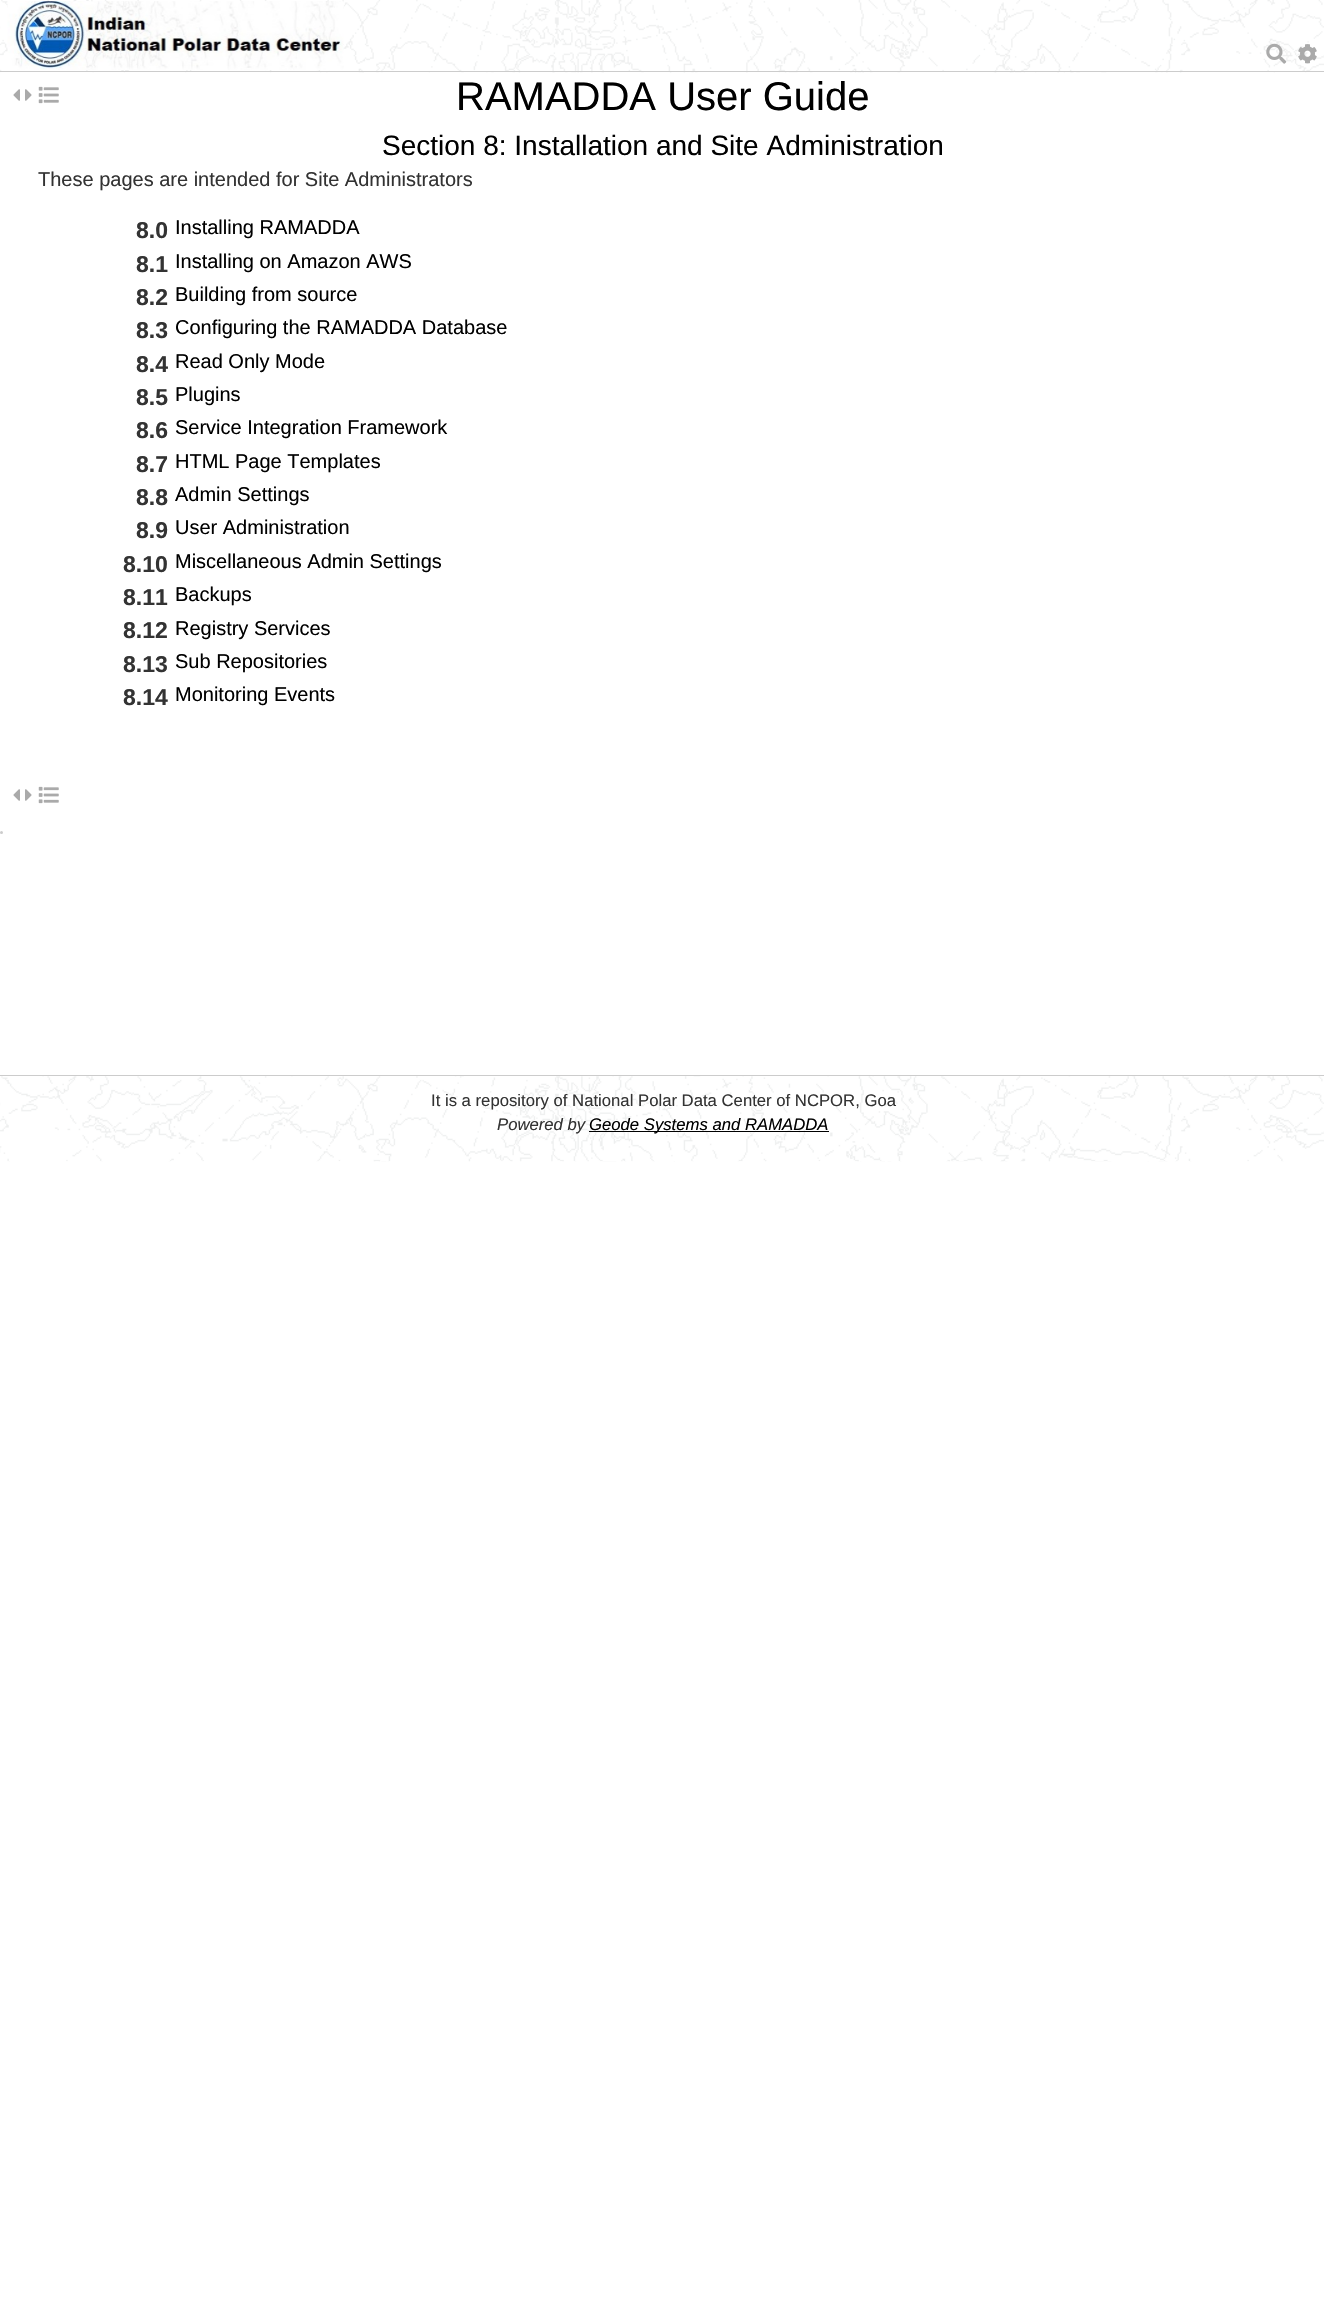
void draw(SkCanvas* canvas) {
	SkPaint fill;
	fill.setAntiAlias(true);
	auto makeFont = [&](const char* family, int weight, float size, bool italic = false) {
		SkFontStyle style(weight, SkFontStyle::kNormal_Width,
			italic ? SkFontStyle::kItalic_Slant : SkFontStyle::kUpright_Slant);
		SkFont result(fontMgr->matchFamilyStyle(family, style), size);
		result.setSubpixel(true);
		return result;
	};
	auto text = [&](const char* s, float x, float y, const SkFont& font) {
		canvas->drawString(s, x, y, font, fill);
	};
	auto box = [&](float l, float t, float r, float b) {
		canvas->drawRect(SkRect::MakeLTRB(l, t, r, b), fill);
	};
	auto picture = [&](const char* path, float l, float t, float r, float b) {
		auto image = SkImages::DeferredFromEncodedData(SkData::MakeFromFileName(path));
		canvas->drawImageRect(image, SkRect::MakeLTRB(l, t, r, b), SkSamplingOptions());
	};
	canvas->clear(0xFFFFFFFF);
	picture("image0.png", 0, 0, 1324, 73);
	fill.setColor(0xFFCCCCCC);
	box(0, 71, 1324, 72);
	picture("image1.png", 7, 1, 344, 70);
	picture("image2.png", 1266, 43, 1287, 64);
	picture("image3.png", 1298, 44, 1317, 64);
	picture("image4.png", 13, 89, 20, 101);
	picture("image5.png", 25, 89, 32, 101);
	picture("image6.png", 38, 86, 59, 104);
	picture("image4.png", 13, 789, 20, 801);
	picture("image5.png", 25, 789, 32, 801);
	picture("image6.png", 38, 786, 59, 804);
	canvas->drawCircle(1.5f, 832.5f, 1.5f, fill);
	picture("image7.png", 0, 1076, 1324, 1162);
	box(0, 1075, 1324, 1076);
	fill.setColor(0xFF000000);
	box(589, 1131, 829, 1132);
	auto font1 = makeFont("Liberation Sans", 400, 40);
	text("RAMADDA User Guide", 456, 110, font1);
	auto font2 = makeFont("Liberation Sans", 400, 28);
	text("Section 8: Installation and Site Administration", 382, 155, font2);
	auto font3 = makeFont("Liberation Sans", 400, 20);
	fill.setColor(0xFF333333);
	text("These pages are intended for Site Administrators", 38, 186, font3);
	auto font4 = makeFont("Liberation Sans", 700, 23);
	text("8.0", 136, 238, font4);
	fill.setColor(0xFF000000);
	text("Installing RAMADDA", 175, 234, font3);
	fill.setColor(0xFF333333);
	text("8.1", 136, 272, font4);
	fill.setColor(0xFF000000);
	text("Installing on Amazon AWS", 175, 268, font3);
	fill.setColor(0xFF333333);
	text("8.2", 136, 305, font4);
	fill.setColor(0xFF000000);
	text("Building from source", 175, 301, font3);
	fill.setColor(0xFF333333);
	text("8.3", 136, 338, font4);
	fill.setColor(0xFF000000);
	text("Configuring the RAMADDA Database", 175, 334, font3);
	fill.setColor(0xFF333333);
	text("8.4", 136, 372, font4);
	fill.setColor(0xFF000000);
	text("Read Only Mode", 175, 368, font3);
	fill.setColor(0xFF333333);
	text("8.5", 136, 405, font4);
	fill.setColor(0xFF000000);
	text("Plugins", 175, 401, font3);
	fill.setColor(0xFF333333);
	text("8.6", 136, 438, font4);
	fill.setColor(0xFF000000);
	text("Service Integration Framework", 175, 434, font3);
	fill.setColor(0xFF333333);
	text("8.7", 136, 472, font4);
	fill.setColor(0xFF000000);
	text("HTML Page Templates", 175, 468, font3);
	fill.setColor(0xFF333333);
	text("8.8", 136, 505, font4);
	fill.setColor(0xFF000000);
	text("Admin Settings", 175, 501, font3);
	fill.setColor(0xFF333333);
	text("8.9", 136, 538, font4);
	fill.setColor(0xFF000000);
	text("User Administration", 175, 534, font3);
	fill.setColor(0xFF333333);
	text("8.10", 123, 572, font4);
	fill.setColor(0xFF000000);
	text("Miscellaneous Admin Settings", 175, 568, font3);
	fill.setColor(0xFF333333);
	text("8.11", 123, 605, font4);
	fill.setColor(0xFF000000);
	text("Backups", 175, 601, font3);
	fill.setColor(0xFF333333);
	text("8.12", 123, 638, font4);
	fill.setColor(0xFF000000);
	text("Registry Services", 175, 635, font3);
	fill.setColor(0xFF333333);
	text("8.13", 123, 672, font4);
	fill.setColor(0xFF000000);
	text("Sub Repositories", 175, 668, font3);
	fill.setColor(0xFF333333);
	text("8.14", 123, 705, font4);
	fill.setColor(0xFF000000);
	text("Monitoring Events", 175, 701, font3);
	auto font5 = makeFont("Liberation Sans", 400, 16.7f);
	fill.setColor(0xFF333333);
	text("It is a repository of National Polar Data Center of NCPOR, Goa", 431, 1106, font5);
	auto font6 = makeFont("Liberation Sans", 400, 16.7f, true);
	text("Powered by", 497, 1130, font6);
	fill.setColor(0xFF000000);
	text("Geode Systems and RAMADDA", 589, 1130, font6);
}
